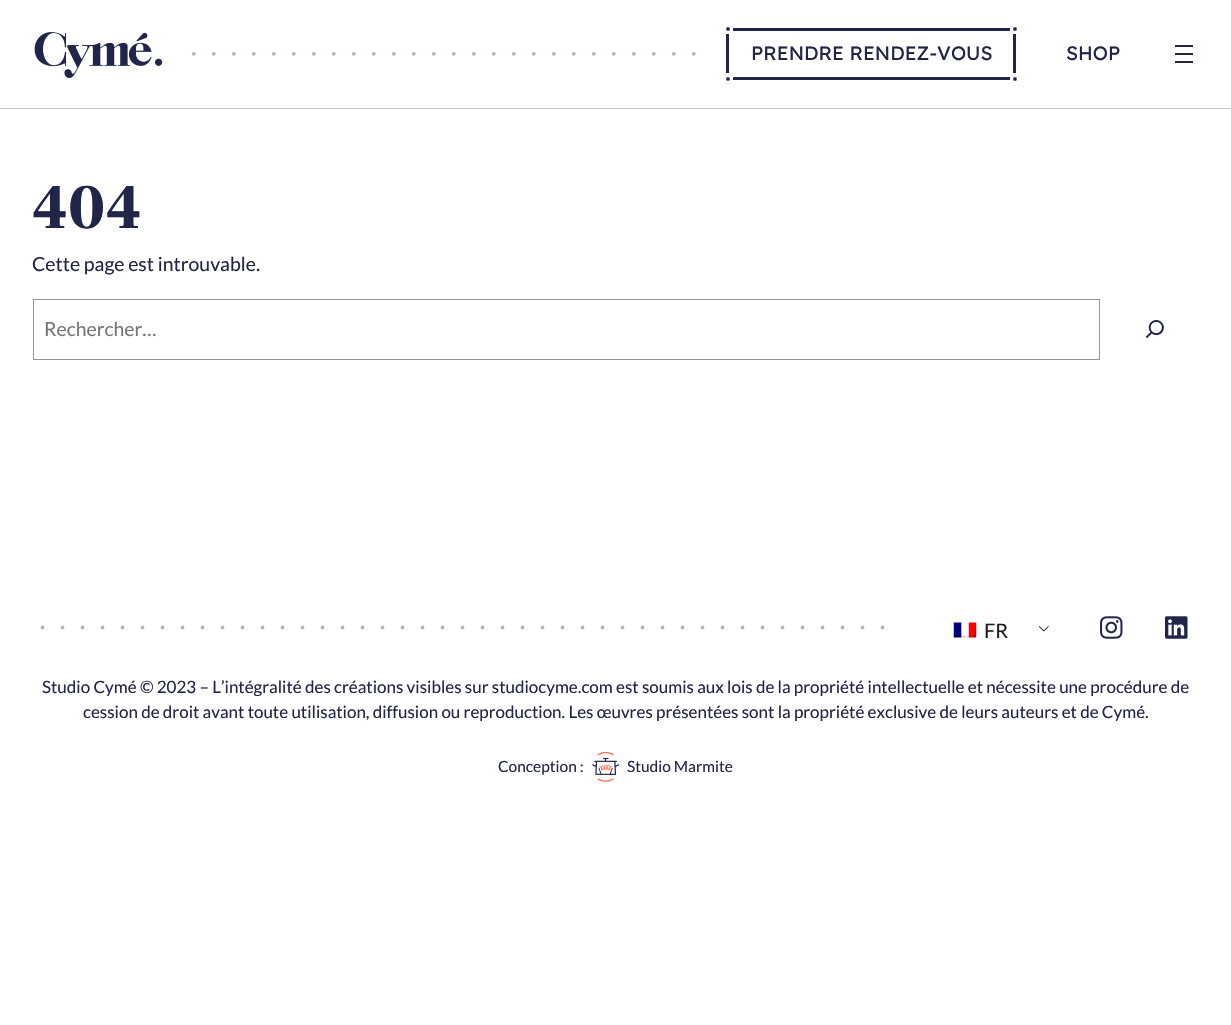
void draw(SkCanvas* canvas) {
	SkPaint fill;
	fill.setAntiAlias(true);
	auto makeFont = [&](const char* family, int weight, float size, bool italic = false) {
		SkFontStyle style(weight, SkFontStyle::kNormal_Width,
			italic ? SkFontStyle::kItalic_Slant : SkFontStyle::kUpright_Slant);
		SkFont result(fontMgr->matchFamilyStyle(family, style), size);
		result.setSubpixel(true);
		return result;
	};
	auto text = [&](const char* s, float x, float y, const SkFont& font) {
		canvas->drawString(s, x, y, font, fill);
	};
	auto box = [&](float l, float t, float r, float b) {
		canvas->drawRect(SkRect::MakeLTRB(l, t, r, b), fill);
	};
	auto picture = [&](const char* path, float l, float t, float r, float b) {
		auto image = SkImages::DeferredFromEncodedData(SkData::MakeFromFileName(path));
		canvas->drawImageRect(image, SkRect::MakeLTRB(l, t, r, b), SkSamplingOptions());
	};
	canvas->clear(0xFFFFFFFF);
	picture("image0.png", 34, 32, 163, 78);
	fill.setStyle(SkPaint::kStroke_Style);
	fill.setStrokeWidth(3.8f);
	fill.setStrokeCap(SkPaint::kRound_Cap);
	fill.setColor(0xFFB1B3BF);
	fill.setPathEffect(SkDashPathEffect::Make({{0, 20}}, 0));
	canvas->drawPath(SkPathBuilder().moveTo(193.8f, 53.8f).lineTo(694, 53.8f).detach(), fill);
	fill.setPathEffect(nullptr);
	fill.setStyle(SkPaint::kFill_Style);
	{
		const SkColor colors[] = {0xFF202549, 0xFFFFFFFF};
		const float stops[] = {0.35f, 0.71f};
		fill.setShader(SkGradientShader::MakeRadial({728, 79}, 3.5f, colors, stops, 2, SkTileMode::kClamp));
		fill.setAlpha(255);
	}
	box(725, 77, 730, 81);
	{
		const SkColor colors[] = {0xFF202549, 0xFFFFFFFF};
		const float stops[] = {0.35f, 0.71f};
		fill.setShader(SkGradientShader::MakeRadial({728, 29}, 3.5f, colors, stops, 2, SkTileMode::kClamp));
		fill.setAlpha(255);
	}
	box(725, 27, 730, 31);
	fill.setShader(nullptr);
	fill.setColor(0xFF202549);
	canvas->drawPath(SkPathBuilder(SkPathFillType::kEvenOdd).moveTo(726, 73).lineTo(726, 34).lineTo(729, 34).lineTo(729, 73).close().moveTo(1010, 80).lineTo(733, 80).lineTo(733, 77).lineTo(1010, 77).close().moveTo(1016, 34).lineTo(1016, 73).lineTo(1013, 73).lineTo(1013, 34).close().moveTo(1010, 28).lineTo(733, 28).lineTo(733, 31).lineTo(1010, 31).close().detach(), fill);
	{
		const SkColor colors[] = {0xFF202549, 0xFFFFFFFF};
		const float stops[] = {0.35f, 0.71f};
		fill.setShader(SkGradientShader::MakeRadial({1015, 79}, 3.5f, colors, stops, 2, SkTileMode::kClamp));
		fill.setAlpha(255);
	}
	box(1013, 77, 1018, 81);
	{
		const SkColor colors[] = {0xFF202549, 0xFFFFFFFF};
		const float stops[] = {0.35f, 0.71f};
		fill.setShader(SkGradientShader::MakeRadial({1015, 29}, 3.5f, colors, stops, 2, SkTileMode::kClamp));
		fill.setAlpha(255);
	}
	box(1013, 27, 1018, 31);
	fill.setShader(nullptr);
	fill.setColor(0xFF202549);
	box(1175, 45, 1193, 47);
	box(1175, 53, 1193, 55);
	box(1175, 61, 1193, 63);
	fill.setColor(0xFFC7C9D2);
	box(0, 108, 1231, 109);
	fill.setStyle(SkPaint::kStroke_Style);
	fill.setStrokeWidth(1);
	fill.setStrokeCap(SkPaint::kButt_Cap);
	fill.setColor(0xFF949494);
	canvas->drawRect(SkRect::MakeLTRB(33.5f, 299.5f, 1099.5f, 359.5f), fill);
	picture("image1.png", 1145, 320, 1164, 339);
	fill.setStrokeWidth(3.8f);
	fill.setStrokeCap(SkPaint::kRound_Cap);
	fill.setColor(0xFFB1B3BF);
	fill.setPathEffect(SkDashPathEffect::Make({{0, 20}}, 0));
	canvas->drawPath(SkPathBuilder().moveTo(42.5f, 627.5f).lineTo(882.8f, 627.5f).detach(), fill);
	fill.setPathEffect(nullptr);
	picture("image2.png", 1039, 626, 1049, 632);
	picture("image3.png", 953, 622, 977, 638);
	picture("image4.png", 1100, 616, 1123, 639);
	picture("image5.png", 1165, 616, 1188, 639);
	picture("image6.png", 592, 752, 619, 782);
	auto font1 = makeFont("Lexend", 400, 19.4f);
	fill.setStyle(SkPaint::kFill_Style);
	fill.setColor(0xFF202549);
	text("PRENDRE RENDEZ-VOUS", 751, 60, font1);
	text("SHOP", 1066, 60, font1);
	auto font2 = makeFont("Frank Ruhl Libre", 900, 63);
	text("404", 32, 228, font2);
	auto font3 = makeFont("Lato", 400, 19.4f);
	text("Cette page est introuvable.", 32, 271, font3);
	fill.setColor(0xFF757575);
	text("Rechercher…", 44, 336, font3);
	auto font4 = makeFont("Lato", 400, 20);
	fill.setColor(0xFF1E1E1E);
	text("FR", 984, 638, font4);
	auto font5 = makeFont("Lato", 400, 17);
	fill.setColor(0xFF202549);
	text("Studio Cymé © 2023 – L’intégralité des créations visibles sur studiocyme.com est soumis aux lois de la propriété intellectuelle et nécessite une procédure de", 42, 693, font5);
	text("cession de droit avant toute utilisation, diffusion ou reproduction. Les œuvres présentées sont la propriété exclusive de leurs auteurs et de Cymé.", 83, 718, font5);
	auto font6 = makeFont("Lato", 400, 15.5f);
	text("Conception :", 498, 772, font6);
	text("Studio Marmite", 627, 772, font6);
}
